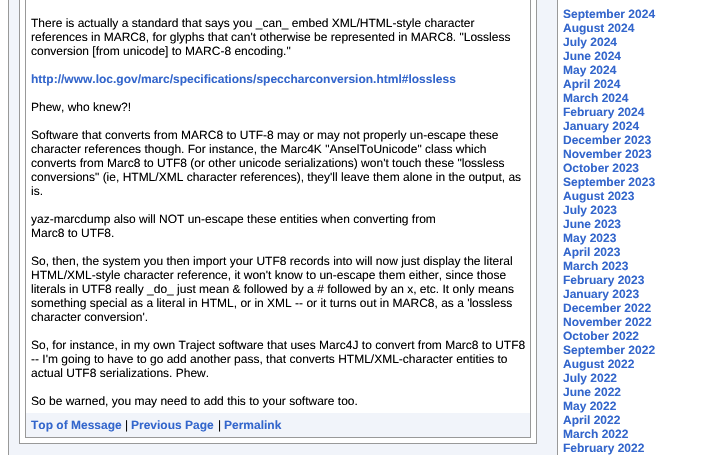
void draw(SkCanvas* canvas) {
	SkPaint fill;
	fill.setAntiAlias(true);
	auto makeFont = [&](const char* family, int weight, float size, bool italic = false) {
		SkFontStyle style(weight, SkFontStyle::kNormal_Width,
			italic ? SkFontStyle::kItalic_Slant : SkFontStyle::kUpright_Slant);
		SkFont result(fontMgr->matchFamilyStyle(family, style), size);
		result.setSubpixel(true);
		return result;
	};
	auto text = [&](const char* s, float x, float y, const SkFont& font) {
		canvas->drawString(s, x, y, font, fill);
	};
	auto box = [&](float l, float t, float r, float b) {
		canvas->drawRect(SkRect::MakeLTRB(l, t, r, b), fill);
	};
	canvas->clear(0xFFFFFFFF);
	fill.setStyle(SkPaint::kStroke_Style);
	fill.setStrokeWidth(1);
	fill.setColor(0xFF999999);
	canvas->drawRect(SkRect::MakeLTRB(8.5f, -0.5f, 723.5f, 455.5f), fill);
	fill.setStyle(SkPaint::kFill_Style);
	fill.setColor(0xFFF1F4FA);
	box(9, 0, 557, 455);
	fill.setStyle(SkPaint::kStroke_Style);
	fill.setColor(0xFF999999);
	canvas->drawRect(SkRect::MakeLTRB(19.5f, -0.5f, 536.5f, 443.5f), fill);
	fill.setStyle(SkPaint::kFill_Style);
	fill.setColor(0xFFFFFFFF);
	box(20, 0, 536, 443);
	fill.setStyle(SkPaint::kStroke_Style);
	fill.setColor(0xFF999999);
	canvas->drawRect(SkRect::MakeLTRB(25.5f, -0.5f, 530.5f, 437.5f), fill);
	fill.setStyle(SkPaint::kFill_Style);
	fill.setColor(0xFFF1F4FA);
	box(26, 413, 530, 437);
	fill.setColor(0xFF999999);
	box(557, 0, 558, 455);
	auto font1 = makeFont("Liberation Sans", 400, 12);
	fill.setColor(0xFF000000);
	text("There is actually a standard that says you _can_ embed XML/HTML-style character", 31, 27, font1);
	text("references in MARC8, for glyphs that can't otherwise be represented in MARC8. \"Lossless", 31, 41, font1);
	text("conversion [from unicode] to MARC-8 encoding.\"", 31, 55, font1);
	auto font2 = makeFont("Liberation Sans", 700, 12);
	fill.setColor(0xFF3366CC);
	text("http://www.loc.gov/marc/specifications/speccharconversion.html#lossless", 31, 83, font2);
	fill.setColor(0xFF000000);
	text("Phew, who knew?!", 31, 111, font1);
	text("Software that converts from MARC8 to UTF-8 may or may not properly un-escape these", 31, 139, font1);
	text("character references though. For instance, the Marc4K \"AnselToUnicode\" class which", 31, 153, font1);
	text("converts from Marc8 to UTF8 (or other unicode serializations) won't touch these \"lossless", 31, 167, font1);
	text("conversions\" (ie, HTML/XML character references), they'll leave them alone in the output, as", 31, 181, font1);
	text("is.", 31, 195, font1);
	text("yaz-marcdump also will NOT un-escape these entities when converting from", 31, 223, font1);
	text("Marc8 to UTF8.", 31, 237, font1);
	text("So, then, the system you then import your UTF8 records into will now just display the literal", 31, 265, font1);
	text("HTML/XML-style character reference, it won't know to un-escape them either, since those", 31, 279, font1);
	text("literals in UTF8 really _do_ just mean & followed by a # followed by an x, etc. It only means", 31, 293, font1);
	text("something special as a literal in HTML, or in XML -- or it turns out in MARC8, as a 'lossless", 31, 307, font1);
	text("character conversion'.", 31, 321, font1);
	text("So, for instance, in my own Traject software that uses Marc4J to convert from Marc8 to UTF8", 31, 349, font1);
	text("-- I'm going to have to go add another pass, that converts HTML/XML-character entities to", 31, 363, font1);
	text("actual UTF8 serializations. Phew.", 31, 377, font1);
	text("So be warned, you may need to add this to your software too.", 31, 405, font1);
	fill.setColor(0xFF3366CC);
	text("Top of Message", 31, 429, font2);
	fill.setColor(0xFF000000);
	text("|", 125, 429, font1);
	fill.setColor(0xFF3366CC);
	text("Previous Page", 131, 429, font2);
	fill.setColor(0xFF000000);
	text("|", 218, 429, font1);
	fill.setColor(0xFF3366CC);
	text("Permalink", 224, 429, font2);
	text("September 2024", 563, 18, font2);
	text("August 2024", 563, 32, font2);
	text("July 2024", 563, 46, font2);
	text("June 2024", 563, 60, font2);
	text("May 2024", 563, 74, font2);
	text("April 2024", 563, 88, font2);
	text("March 2024", 563, 102, font2);
	text("February 2024", 563, 116, font2);
	text("January 2024", 563, 130, font2);
	text("December 2023", 563, 144, font2);
	text("November 2023", 563, 158, font2);
	text("October 2023", 563, 172, font2);
	text("September 2023", 563, 186, font2);
	text("August 2023", 563, 200, font2);
	text("July 2023", 563, 214, font2);
	text("June 2023", 563, 228, font2);
	text("May 2023", 563, 242, font2);
	text("April 2023", 563, 256, font2);
	text("March 2023", 563, 270, font2);
	text("February 2023", 563, 284, font2);
	text("January 2023", 563, 298, font2);
	text("December 2022", 563, 312, font2);
	text("November 2022", 563, 326, font2);
	text("October 2022", 563, 340, font2);
	text("September 2022", 563, 354, font2);
	text("August 2022", 563, 368, font2);
	text("July 2022", 563, 382, font2);
	text("June 2022", 563, 396, font2);
	text("May 2022", 563, 410, font2);
	text("April 2022", 563, 424, font2);
	text("March 2022", 563, 438, font2);
	text("February 2022", 563, 452, font2);
}
